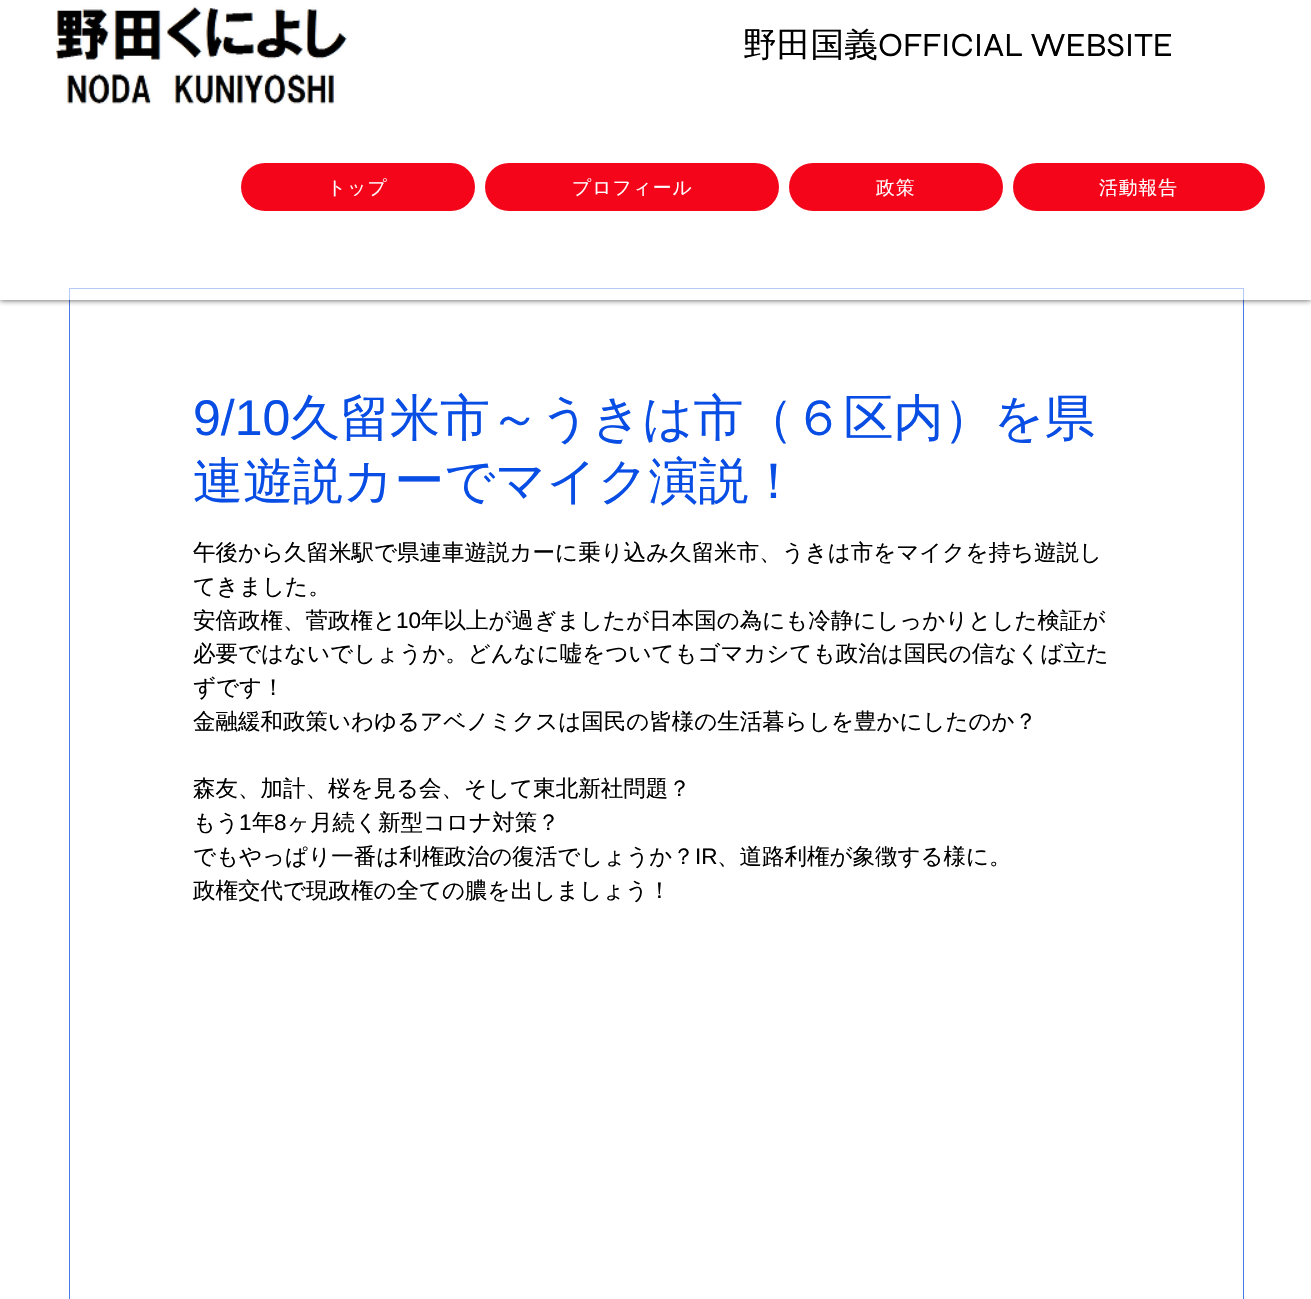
void draw(SkCanvas* canvas) {
	SkPaint fill;
	fill.setAntiAlias(true);
	auto makeFont = [&](const char* family, int weight, float size, bool italic = false) {
		SkFontStyle style(weight, SkFontStyle::kNormal_Width,
			italic ? SkFontStyle::kItalic_Slant : SkFontStyle::kUpright_Slant);
		SkFont result(fontMgr->matchFamilyStyle(family, style), size);
		result.setSubpixel(true);
		return result;
	};
	auto text = [&](const char* s, float x, float y, const SkFont& font) {
		canvas->drawString(s, x, y, font, fill);
	};
	auto spacedText = [&](const char* s, float x, float y, const SkFont& font, const SkPaint& ink, float letter, float word) {
		std::vector<SkGlyphID> glyphs(font.countText(s, strlen(s), SkTextEncoding::kUTF8));
		std::vector<float> xs(glyphs.size());
		font.textToGlyphs(s, strlen(s), SkTextEncoding::kUTF8, glyphs);
		font.getXPos(glyphs, xs, x);
		float extra = 0;
		for (size_t i = 0; i < glyphs.size(); i++) {
			xs[i] += extra;
			extra += letter + word * (glyphs[i] == font.unicharToGlyph(' '));
		}
		canvas->drawTextBlob(SkTextBlob::MakeFromPosHGlyphs(glyphs, xs, y, font), 0, 0, ink);
	};
	auto box = [&](float l, float t, float r, float b) {
		canvas->drawRect(SkRect::MakeLTRB(l, t, r, b), fill);
	};
	auto roundBox = [&](float l, float t, float r, float b, float radius) {
		canvas->drawRoundRect(SkRect::MakeLTRB(l, t, r, b), radius, radius, fill);
	};
	auto picture = [&](const char* path, float l, float t, float r, float b) {
		auto image = SkImages::DeferredFromEncodedData(SkData::MakeFromFileName(path));
		canvas->drawImageRect(image, SkRect::MakeLTRB(l, t, r, b), SkSamplingOptions());
	};
	canvas->clear(0xFFFFFFFF);
	fill.setStyle(SkPaint::kStroke_Style);
	fill.setStrokeWidth(1);
	fill.setColor(0xFF467AEB);
	canvas->drawRect(SkRect::MakeLTRB(69.5f, 288.5f, 1243.5f, 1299.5f), fill);
	canvas->save();
	canvas->clipRect(SkRect::MakeLTRB(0, 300, 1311, 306));
	fill.setStyle(SkPaint::kFill_Style);
	fill.setColor(0xB3000000);
	fill.setMaskFilter(SkMaskFilter::MakeBlur(kNormal_SkBlurStyle, 3));
	canvas->drawRect(SkRect::MakeLTRB(0, 0, 1311, 300), fill);
	fill.setMaskFilter(nullptr);
	canvas->restore();
	fill.setColor(0x99FFFFFF);
	box(69, 288, 1244, 300);
	picture("image0.png", 56, 6, 347, 104);
	fill.setColor(0xFFF4051A);
	roundBox(241, 163, 475, 211, 24);
	roundBox(485, 163, 779, 211, 24);
	roundBox(789, 163, 1003, 211, 24);
	roundBox(1013, 163, 1265, 211, 24);
	auto font1 = makeFont("WenQuanYi Zen Hei", 500, 33.75f);
	fill.setColor(0xFF000000);
	text("野田国義", 743, 56, font1);
	auto font2 = makeFont("Syne", 400, 33.75f);
	text("OFFICIAL WEBSITE", 878, 56, font2);
	auto font3 = makeFont("WenQuanYi Zen Hei", 500, 18.75f);
	fill.setColor(0xFFFFFFFF);
	spacedText("トップ", 327, 194, font3, fill, 1, 0);
	spacedText("プロフィール", 572, 194, font3, fill, 1, 0);
	spacedText("政策", 876, 194, font3, fill, 1, 0);
	spacedText("活動報告", 1099, 194, font3, fill, 1, 0);
	auto font4 = makeFont("Liberation Sans", 400, 50);
	fill.setColor(0xFF084DE4);
	text("9/10", 193, 435, font4);
	auto font5 = makeFont("WenQuanYi Zen Hei", 500, 50);
	text("久留米市～うきは市（６区内）を県", 290, 435, font5);
	text("連遊説カーでマイク演説！", 193, 498, font5);
	auto font6 = makeFont("WenQuanYi Zen Hei", 500, 22.5f);
	fill.setColor(0xFF000000);
	text("午後から久留米駅で県連車遊説カーに乗り込み久留米市、うきは市をマイクを持ち遊説し", 193, 560, font6);
	text("てきました。", 193, 594, font6);
	text("安倍政権、菅政権と", 193, 628, font6);
	auto font7 = makeFont("Liberation Sans", 400, 22.5f);
	text("10", 396, 628, font7);
	text("年以上が過ぎましたが日本国の為にも冷静にしっかりとした検証が", 421, 628, font6);
	text("必要ではないでしょうか。どんなに嘘をついてもゴマカシても政治は国民の信なくば立た", 193, 661, font6);
	text("ずです！", 193, 695, font6);
	text("金融緩和政策いわゆるアベノミクスは国民の皆様の生活暮らしを豊かにしたのか？", 193, 729, font6);
	text("森友、加計、桜を見る会、そして東北新社問題？", 193, 796, font6);
	text("もう", 193, 830, font6);
	text("1", 239, 830, font7);
	text("年", 252, 830, font6);
	text("8", 274, 830, font7);
	text("ヶ月続く新型コロナ対策？", 287, 830, font6);
	text("でもやっぱり一番は利権政治の復活でしょうか？", 193, 864, font6);
	text("IR", 695, 864, font7);
	text("、道路利権が象徴する様に。", 717, 864, font6);
	text("政権交代で現政権の全ての膿を出しましょう！", 193, 898, font6);
}
